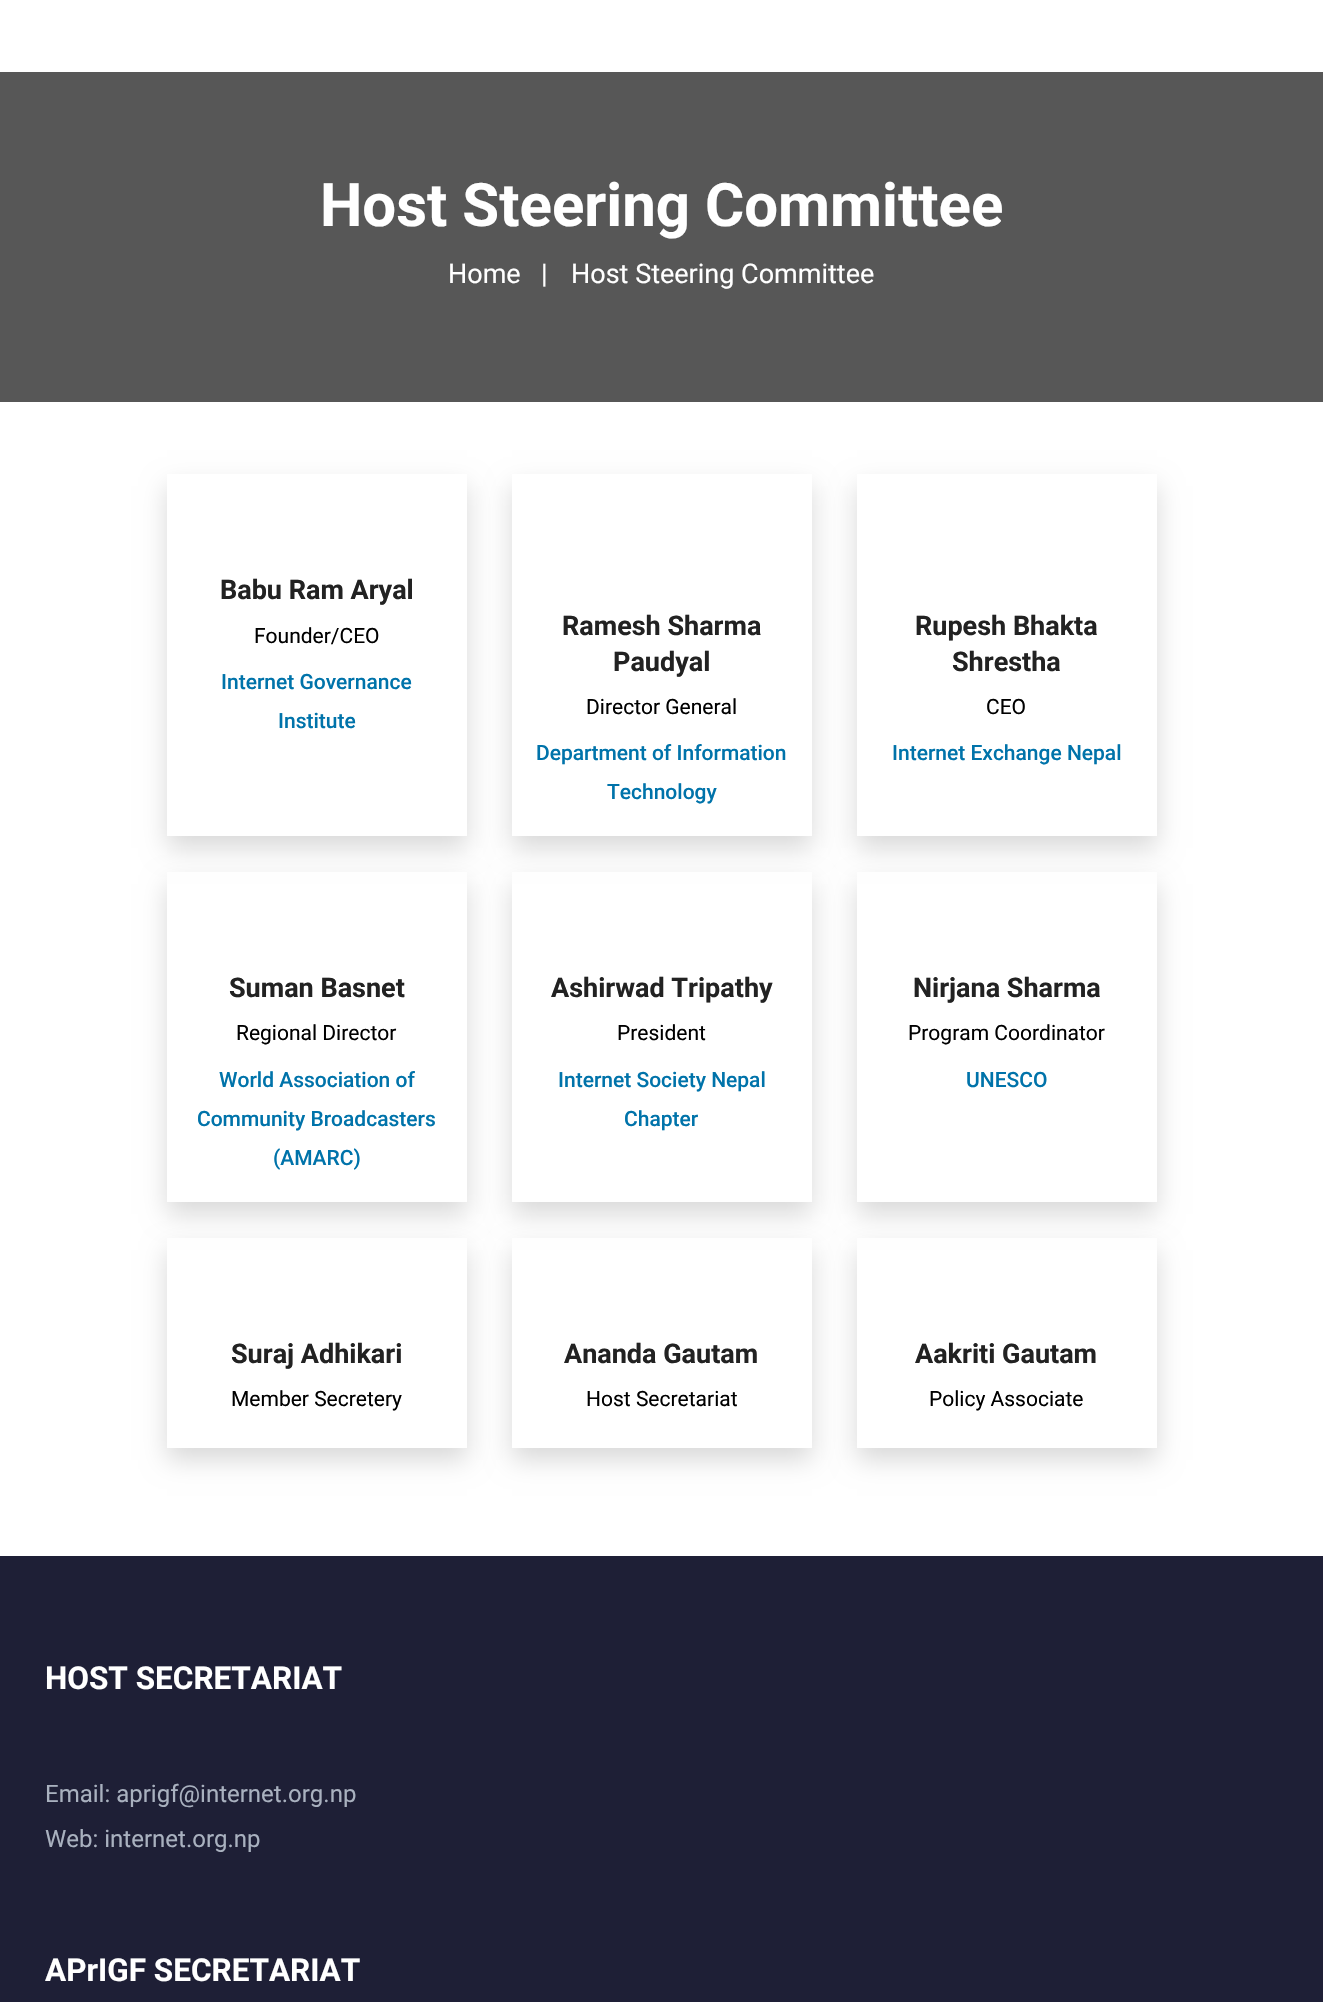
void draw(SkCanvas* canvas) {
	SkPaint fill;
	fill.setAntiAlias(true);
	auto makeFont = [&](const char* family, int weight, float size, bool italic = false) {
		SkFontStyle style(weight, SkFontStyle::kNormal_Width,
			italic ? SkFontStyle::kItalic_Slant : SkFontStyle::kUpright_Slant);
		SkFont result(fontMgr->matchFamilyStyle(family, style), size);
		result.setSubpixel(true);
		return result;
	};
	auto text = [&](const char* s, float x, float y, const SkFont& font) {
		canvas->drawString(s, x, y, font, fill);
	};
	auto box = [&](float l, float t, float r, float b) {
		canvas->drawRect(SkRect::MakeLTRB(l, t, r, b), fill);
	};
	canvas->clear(0xFFFFFFFF);
	fill.setColor(0xFF575757);
	box(0, 72, 1323, 402);
	canvas->save();
	canvas->clipPath(SkPathBuilder(SkPathFillType::kEvenOdd).moveTo(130, 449).lineTo(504, 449).lineTo(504, 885).lineTo(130, 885).close().moveTo(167, 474).lineTo(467, 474).lineTo(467, 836).lineTo(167, 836).close().detach(), true);
	fill.setColor(0x26000000);
	fill.setMaskFilter(SkMaskFilter::MakeBlur(kNormal_SkBlurStyle, 12));
	canvas->drawRect(SkRect::MakeLTRB(167, 486, 467, 848), fill);
	fill.setMaskFilter(nullptr);
	canvas->restore();
	canvas->save();
	canvas->clipPath(SkPathBuilder(SkPathFillType::kEvenOdd).moveTo(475, 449).lineTo(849, 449).lineTo(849, 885).lineTo(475, 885).close().moveTo(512, 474).lineTo(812, 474).lineTo(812, 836).lineTo(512, 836).close().detach(), true);
	fill.setMaskFilter(SkMaskFilter::MakeBlur(kNormal_SkBlurStyle, 12));
	canvas->drawRect(SkRect::MakeLTRB(512, 486, 812, 848), fill);
	fill.setMaskFilter(nullptr);
	canvas->restore();
	canvas->save();
	canvas->clipPath(SkPathBuilder(SkPathFillType::kEvenOdd).moveTo(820, 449).lineTo(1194, 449).lineTo(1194, 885).lineTo(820, 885).close().moveTo(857, 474).lineTo(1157, 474).lineTo(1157, 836).lineTo(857, 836).close().detach(), true);
	fill.setMaskFilter(SkMaskFilter::MakeBlur(kNormal_SkBlurStyle, 12));
	canvas->drawRect(SkRect::MakeLTRB(857, 486, 1157, 848), fill);
	fill.setMaskFilter(nullptr);
	canvas->restore();
	canvas->save();
	canvas->clipPath(SkPathBuilder(SkPathFillType::kEvenOdd).moveTo(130, 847).lineTo(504, 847).lineTo(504, 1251).lineTo(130, 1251).close().moveTo(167, 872).lineTo(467, 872).lineTo(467, 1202).lineTo(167, 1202).close().detach(), true);
	fill.setMaskFilter(SkMaskFilter::MakeBlur(kNormal_SkBlurStyle, 12));
	canvas->drawRect(SkRect::MakeLTRB(167, 884, 467, 1214), fill);
	fill.setMaskFilter(nullptr);
	canvas->restore();
	canvas->save();
	canvas->clipPath(SkPathBuilder(SkPathFillType::kEvenOdd).moveTo(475, 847).lineTo(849, 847).lineTo(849, 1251).lineTo(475, 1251).close().moveTo(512, 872).lineTo(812, 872).lineTo(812, 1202).lineTo(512, 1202).close().detach(), true);
	fill.setMaskFilter(SkMaskFilter::MakeBlur(kNormal_SkBlurStyle, 12));
	canvas->drawRect(SkRect::MakeLTRB(512, 884, 812, 1214), fill);
	fill.setMaskFilter(nullptr);
	canvas->restore();
	canvas->save();
	canvas->clipPath(SkPathBuilder(SkPathFillType::kEvenOdd).moveTo(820, 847).lineTo(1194, 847).lineTo(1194, 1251).lineTo(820, 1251).close().moveTo(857, 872).lineTo(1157, 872).lineTo(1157, 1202).lineTo(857, 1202).close().detach(), true);
	fill.setMaskFilter(SkMaskFilter::MakeBlur(kNormal_SkBlurStyle, 12));
	canvas->drawRect(SkRect::MakeLTRB(857, 884, 1157, 1214), fill);
	fill.setMaskFilter(nullptr);
	canvas->restore();
	canvas->save();
	canvas->clipPath(SkPathBuilder(SkPathFillType::kEvenOdd).moveTo(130, 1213).lineTo(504, 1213).lineTo(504, 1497).lineTo(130, 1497).close().moveTo(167, 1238).lineTo(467, 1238).lineTo(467, 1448).lineTo(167, 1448).close().detach(), true);
	fill.setMaskFilter(SkMaskFilter::MakeBlur(kNormal_SkBlurStyle, 12));
	canvas->drawRect(SkRect::MakeLTRB(167, 1250, 467, 1460), fill);
	fill.setMaskFilter(nullptr);
	canvas->restore();
	canvas->save();
	canvas->clipPath(SkPathBuilder(SkPathFillType::kEvenOdd).moveTo(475, 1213).lineTo(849, 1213).lineTo(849, 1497).lineTo(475, 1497).close().moveTo(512, 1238).lineTo(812, 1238).lineTo(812, 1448).lineTo(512, 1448).close().detach(), true);
	fill.setMaskFilter(SkMaskFilter::MakeBlur(kNormal_SkBlurStyle, 12));
	canvas->drawRect(SkRect::MakeLTRB(512, 1250, 812, 1460), fill);
	fill.setMaskFilter(nullptr);
	canvas->restore();
	canvas->save();
	canvas->clipPath(SkPathBuilder(SkPathFillType::kEvenOdd).moveTo(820, 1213).lineTo(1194, 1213).lineTo(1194, 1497).lineTo(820, 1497).close().moveTo(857, 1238).lineTo(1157, 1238).lineTo(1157, 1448).lineTo(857, 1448).close().detach(), true);
	fill.setMaskFilter(SkMaskFilter::MakeBlur(kNormal_SkBlurStyle, 12));
	canvas->drawRect(SkRect::MakeLTRB(857, 1250, 1157, 1460), fill);
	fill.setMaskFilter(nullptr);
	canvas->restore();
	fill.setColor(0xFF1E1F36);
	box(0, 1556, 1323, 2002);
	auto font1 = makeFont("Roboto", 700, 60);
	fill.setColor(0xFFFFFFFF);
	text("Host Steering Committee", 320, 226, font1);
	auto font2 = makeFont("Roboto", 400, 27);
	text("Home", 448, 283, font2);
	text("|", 541, 283, font2);
	text("Host Steering Committee", 571, 283, font2);
	auto font3 = makeFont("Roboto", 700, 27);
	fill.setColor(0xFF222222);
	text("Babu Ram Aryal", 220, 599, font3);
	auto font4 = makeFont("Roboto", 400, 21);
	fill.setColor(0xFF000000);
	text("Founder/CEO", 254, 643, font4);
	auto font5 = makeFont("Roboto", 500, 21);
	fill.setColor(0xFF0073AA);
	text("Internet Governance", 221, 689, font5);
	text("Institute", 278, 728, font5);
	fill.setColor(0xFF222222);
	text("Ramesh Sharma", 562, 635, font3);
	text("Paudyal", 613, 671, font3);
	fill.setColor(0xFF000000);
	text("Director General", 586, 714, font4);
	fill.setColor(0xFF0073AA);
	text("Department of Information", 536, 760, font5);
	text("Technology", 607, 799, font5);
	fill.setColor(0xFF222222);
	text("Rupesh Bhakta", 915, 635, font3);
	text("Shrestha", 952, 671, font3);
	fill.setColor(0xFF000000);
	text("CEO", 986, 714, font4);
	fill.setColor(0xFF0073AA);
	text("Internet Exchange Nepal", 892, 760, font5);
	fill.setColor(0xFF222222);
	text("Suman Basnet", 229, 997, font3);
	fill.setColor(0xFF000000);
	text("Regional Director", 236, 1040, font4);
	fill.setColor(0xFF0073AA);
	text("World Association of", 219, 1087, font5);
	text("Community Broadcasters", 197, 1126, font5);
	text("(AMARC)", 273, 1165, font5);
	fill.setColor(0xFF222222);
	text("Ashirwad Tripathy", 551, 997, font3);
	fill.setColor(0xFF000000);
	text("President", 617, 1040, font4);
	fill.setColor(0xFF0073AA);
	text("Internet Society Nepal", 558, 1087, font5);
	text("Chapter", 624, 1126, font5);
	fill.setColor(0xFF222222);
	text("Nirjana Sharma", 913, 997, font3);
	fill.setColor(0xFF000000);
	text("Program Coordinator", 908, 1040, font4);
	fill.setColor(0xFF0073AA);
	text("UNESCO", 966, 1087, font5);
	fill.setColor(0xFF222222);
	text("Suraj Adhikari", 231, 1363, font3);
	fill.setColor(0xFF000000);
	text("Member Secretery", 231, 1406, font4);
	fill.setColor(0xFF222222);
	text("Ananda Gautam", 564, 1363, font3);
	fill.setColor(0xFF000000);
	text("Host Secretariat", 586, 1406, font4);
	fill.setColor(0xFF222222);
	text("Aakriti Gautam", 915, 1363, font3);
	fill.setColor(0xFF000000);
	text("Policy Associate", 929, 1406, font4);
	auto font6 = makeFont("Roboto", 700, 31.5f);
	fill.setColor(0xFFFFFFFF);
	text("HOST SECRETARIAT", 45, 1689, font6);
	auto font7 = makeFont("Roboto", 400, 24);
	fill.setColor(0xFFA9B1BF);
	text("Email: aprigf@internet.org.np", 45, 1802, font7);
	text("Web: internet.org.np", 45, 1847, font7);
	fill.setColor(0xFFFFFFFF);
	text("APrIGF SECRETARIAT", 45, 1981, font6);
}
